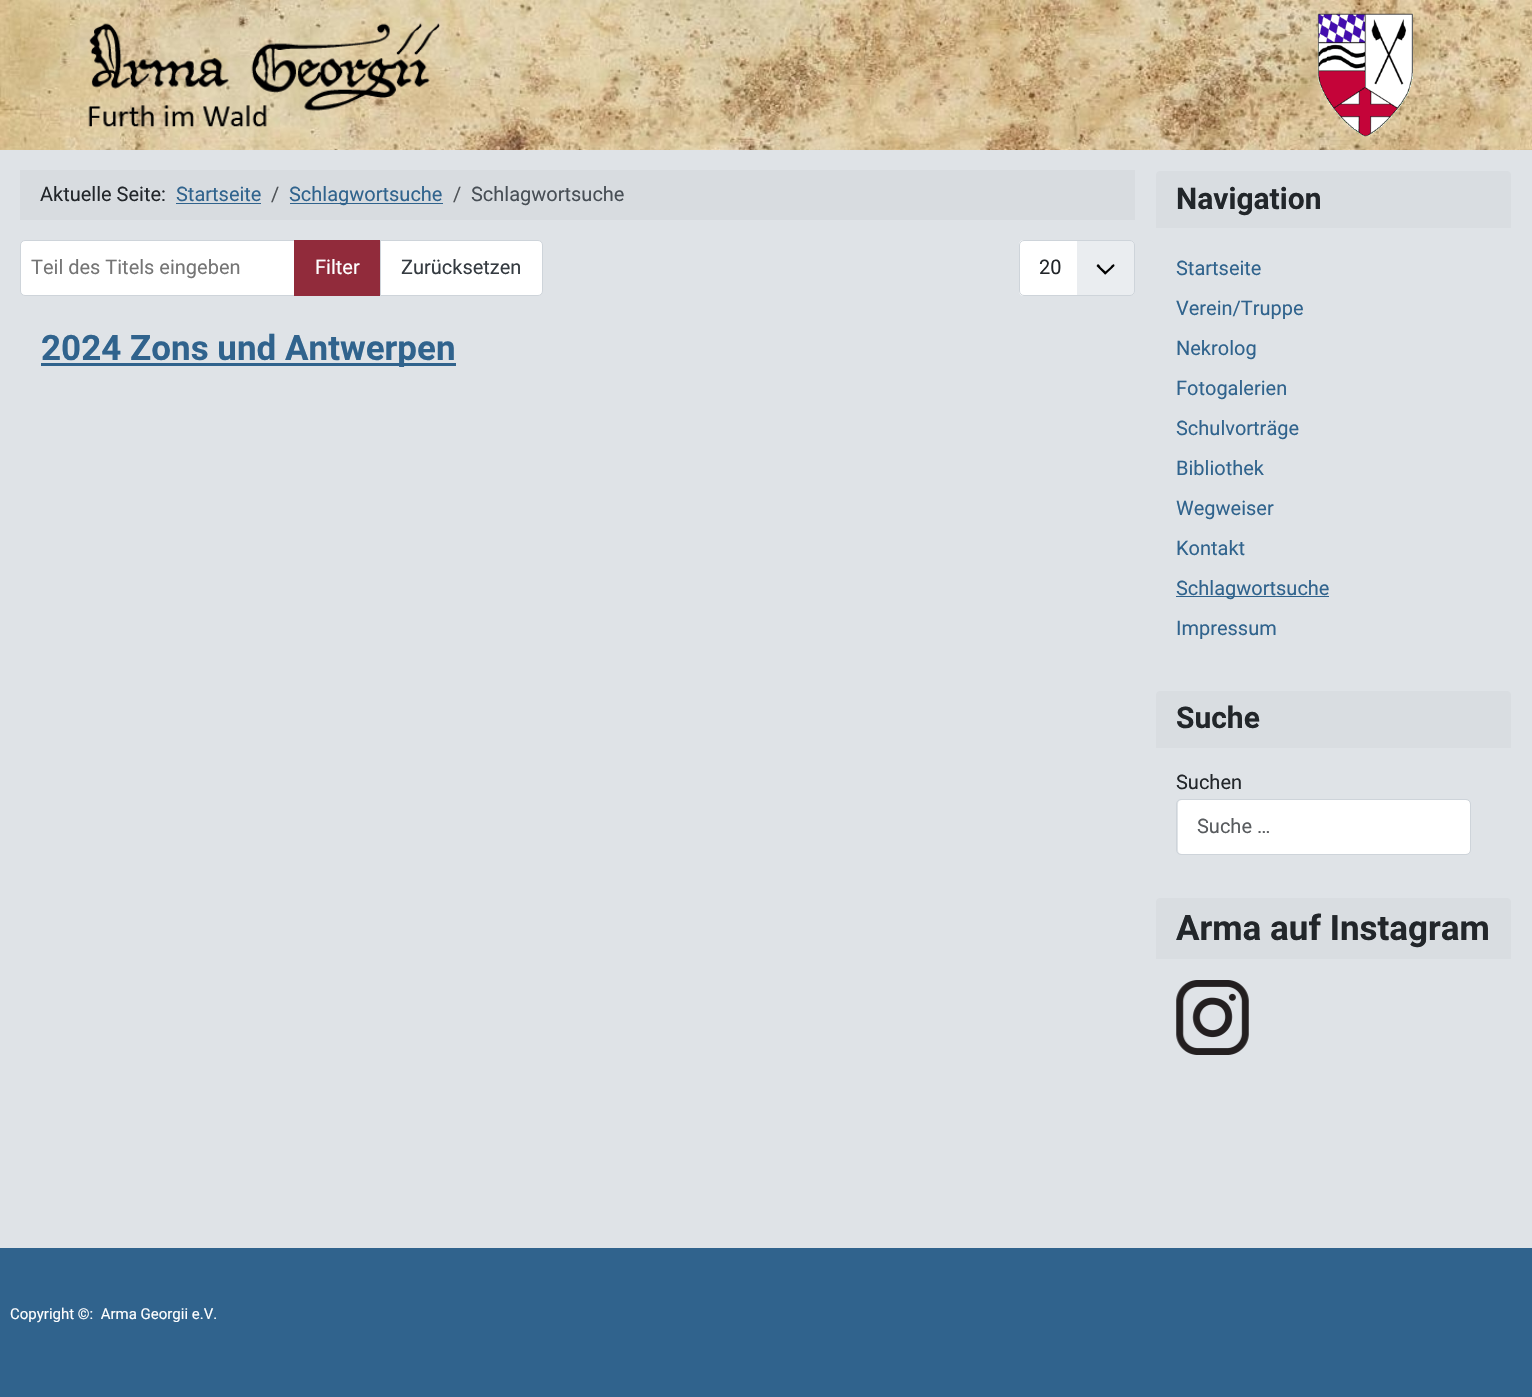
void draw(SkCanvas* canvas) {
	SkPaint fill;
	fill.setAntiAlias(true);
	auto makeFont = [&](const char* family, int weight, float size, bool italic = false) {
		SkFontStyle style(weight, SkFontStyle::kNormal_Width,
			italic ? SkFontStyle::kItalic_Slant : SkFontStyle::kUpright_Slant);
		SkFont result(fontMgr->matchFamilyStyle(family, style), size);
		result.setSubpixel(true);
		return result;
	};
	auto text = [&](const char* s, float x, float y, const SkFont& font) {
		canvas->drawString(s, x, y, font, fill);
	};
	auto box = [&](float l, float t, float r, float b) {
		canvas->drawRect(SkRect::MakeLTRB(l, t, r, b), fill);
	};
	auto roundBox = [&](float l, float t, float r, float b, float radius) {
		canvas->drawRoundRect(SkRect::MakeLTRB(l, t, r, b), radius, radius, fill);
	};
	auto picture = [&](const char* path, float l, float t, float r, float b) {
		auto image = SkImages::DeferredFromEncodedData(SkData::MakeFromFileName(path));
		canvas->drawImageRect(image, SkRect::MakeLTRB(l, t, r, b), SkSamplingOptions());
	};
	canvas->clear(0xFFDFE3E7);
	picture("image0.png", 0, 0, 1532, 150);
	picture("image1.png", 88, 23, 440, 127);
	picture("image2.png", 1317, 13, 1413, 137);
	fill.setColor(0xFFD8DCE0);
	box(20, 170, 1135, 220);
	fill.setColor(0xFF30638D);
	box(176, 203, 261, 204);
	box(290, 203, 443, 204);
	fill.setColor(0xFFFFFFFF);
	canvas->drawPath(SkPathBuilder().moveTo(25, 240.5f).lineTo(294.5f, 240.5f).lineTo(294.5f, 295.5f).lineTo(25, 295.5f).cubicTo(22.5f, 295.5f, 20.5f, 293.5f, 20.5f, 291).lineTo(20.5f, 245).cubicTo(20.5f, 242.5f, 22.5f, 240.5f, 25, 240.5f).close().detach(), fill);
	fill.setStyle(SkPaint::kStroke_Style);
	fill.setStrokeWidth(1);
	fill.setColor(0xFFCED4DA);
	canvas->drawPath(SkPathBuilder().moveTo(25, 240.5f).lineTo(294.5f, 240.5f).lineTo(294.5f, 295.5f).lineTo(25, 295.5f).cubicTo(22.5f, 295.5f, 20.5f, 293.5f, 20.5f, 291).lineTo(20.5f, 245).cubicTo(20.5f, 242.5f, 22.5f, 240.5f, 25, 240.5f).close().detach(), fill);
	fill.setStyle(SkPaint::kFill_Style);
	fill.setColor(0xFF912B3B);
	box(294, 240, 380, 296);
	fill.setColor(0xFFFFFFFF);
	canvas->drawPath(SkPathBuilder().moveTo(380.5f, 240.5f).lineTo(538, 240.5f).cubicTo(540.5f, 240.5f, 542.5f, 242.5f, 542.5f, 245).lineTo(542.5f, 291).cubicTo(542.5f, 293.5f, 540.5f, 295.5f, 538, 295.5f).lineTo(380.5f, 295.5f).close().detach(), fill);
	fill.setStyle(SkPaint::kStroke_Style);
	fill.setColor(0xFFCED4DA);
	canvas->drawPath(SkPathBuilder().moveTo(380.5f, 240.5f).lineTo(538, 240.5f).cubicTo(540.5f, 240.5f, 542.5f, 242.5f, 542.5f, 245).lineTo(542.5f, 291).cubicTo(542.5f, 293.5f, 540.5f, 295.5f, 538, 295.5f).lineTo(380.5f, 295.5f).close().detach(), fill);
	fill.setStyle(SkPaint::kFill_Style);
	fill.setColor(0xFFEAEDF0);
	roundBox(1019, 240, 1135, 296, 5);
	fill.setColor(0xFF000000);
	canvas->drawPath(SkPathBuilder().moveTo(1096.5f, 266).lineTo(1103.5f, 273).cubicTo(1105.5f, 275, 1105, 275, 1107, 273).lineTo(1113, 267.5f).cubicTo(1113, 267, 1114.5f, 266.5f, 1114.5f, 265.5f).cubicTo(1114, 262, 1110.5f, 266.5f, 1110.5f, 267).lineTo(1105.5f, 271.5f).lineTo(1100.5f, 267).cubicTo(1100.5f, 266.5f, 1098.5f, 263.5f, 1097.5f, 264.5f).close().detach(), fill);
	fill.setColor(0xFFFFFFFF);
	canvas->drawPath(SkPathBuilder().moveTo(1024, 240).lineTo(1077, 240).lineTo(1077, 296).lineTo(1024, 296).cubicTo(1021, 296, 1019, 294, 1019, 291).lineTo(1019, 245).cubicTo(1019, 242, 1021, 240, 1024, 240).close().detach(), fill);
	fill.setStyle(SkPaint::kStroke_Style);
	fill.setColor(0xFFCED4DA);
	canvas->drawRoundRect(SkRect::MakeLTRB(1019.5f, 240.5f, 1134.5f, 295.5f), 4.5f, 4.5f, fill);
	fill.setStyle(SkPaint::kFill_Style);
	fill.setColor(0xFF30638D);
	box(41, 363, 456, 366);
	fill.setColor(0xFFD9DDE1);
	canvas->drawPath(SkPathBuilder().moveTo(1160, 171).lineTo(1507, 171).cubicTo(1509, 171, 1511, 173, 1511, 175).lineTo(1511, 229).lineTo(1156, 229).lineTo(1156, 175).cubicTo(1156, 173, 1158, 171, 1160, 171).close().detach(), fill);
	fill.setColor(0xFFDFE3E7);
	box(1156, 228, 1511, 229);
	fill.setColor(0xFF30638D);
	box(1176, 596, 1329, 597);
	fill.setColor(0xFFD9DDE1);
	canvas->drawPath(SkPathBuilder().moveTo(1160, 691).lineTo(1507, 691).cubicTo(1509, 691, 1511, 693, 1511, 695).lineTo(1511, 749).lineTo(1156, 749).lineTo(1156, 695).cubicTo(1156, 693, 1158, 691, 1160, 691).close().detach(), fill);
	fill.setColor(0xFFDFE3E7);
	box(1156, 748, 1511, 749);
	fill.setColor(0xFFFFFFFF);
	roundBox(1178, 800, 1470, 854, 4);
	fill.setStyle(SkPaint::kStroke_Style);
	fill.setColor(0xFFCED4DA);
	canvas->drawRoundRect(SkRect::MakeLTRB(1176.5f, 799.5f, 1470.5f, 854.5f), 4.5f, 4.5f, fill);
	fill.setStyle(SkPaint::kFill_Style);
	fill.setColor(0xFFD9DDE1);
	canvas->drawPath(SkPathBuilder().moveTo(1160, 898).lineTo(1507, 898).cubicTo(1509, 898, 1511, 900, 1511, 902).lineTo(1511, 960).lineTo(1156, 960).lineTo(1156, 902).cubicTo(1156, 900, 1158, 898, 1160, 898).close().detach(), fill);
	fill.setColor(0xFFDFE3E7);
	box(1156, 959, 1511, 960);
	picture("image3.png", 1176, 980, 1249, 1055);
	fill.setColor(0xFF30638D);
	box(0, 1248, 1532, 1397);
	auto font1 = makeFont("Roboto", 400, 20);
	fill.setColor(0xFF22262A);
	text("Aktuelle Seite:", 40, 201, font1);
	fill.setColor(0xFF30638D);
	text("Startseite", 176, 201, font1);
	fill.setColor(0xFF505458);
	text("/", 271, 201, font1);
	fill.setColor(0xFF30638D);
	text("Schlagwortsuche", 289, 201, font1);
	fill.setColor(0xFF505458);
	text("/", 453, 201, font1);
	fill.setColor(0xFF484F56);
	text("Schlagwortsuche", 471, 201, font1);
	fill.setColor(0xFF757575);
	text("Teil des Titels eingeben", 31, 274, font1);
	fill.setColor(0xFFFFFFFF);
	text("Filter", 315, 274, font1);
	fill.setColor(0xFF353B41);
	text("Zurücksetzen", 401, 274, font1);
	fill.setColor(0xFF22262A);
	text("20", 1039, 274, font1);
	auto font2 = makeFont("Roboto", 700, 35);
	fill.setColor(0xFF30638D);
	text("2024 Zons und Antwerpen", 41, 360, font2);
	auto font3 = makeFont("Roboto", 700, 30);
	fill.setColor(0xFF22262A);
	text("Navigation", 1176, 209, font3);
	fill.setColor(0xFF30638D);
	text("Startseite", 1176, 275, font1);
	text("Verein/Truppe", 1176, 315, font1);
	text("Nekrolog", 1176, 355, font1);
	text("Fotogalerien", 1176, 395, font1);
	text("Schulvorträge", 1176, 435, font1);
	text("Bibliothek", 1176, 475, font1);
	text("Wegweiser", 1176, 515, font1);
	text("Kontakt", 1176, 555, font1);
	text("Schlagwortsuche", 1176, 595, font1);
	text("Impressum", 1176, 635, font1);
	fill.setColor(0xFF22262A);
	text("Suche", 1176, 728, font3);
	text("Suchen", 1176, 789, font1);
	fill.setColor(0xFF595C5F);
	text("Suche …", 1197, 833, font1);
	fill.setColor(0xFF22262A);
	text("Arma auf Instagram", 1176, 940, font2);
	auto font4 = makeFont("Roboto", 400, 15);
	fill.setColor(0xFFFFFFFF);
	text("Copyright ©:  Arma Georgii e.V.", 10, 1319, font4);
}
